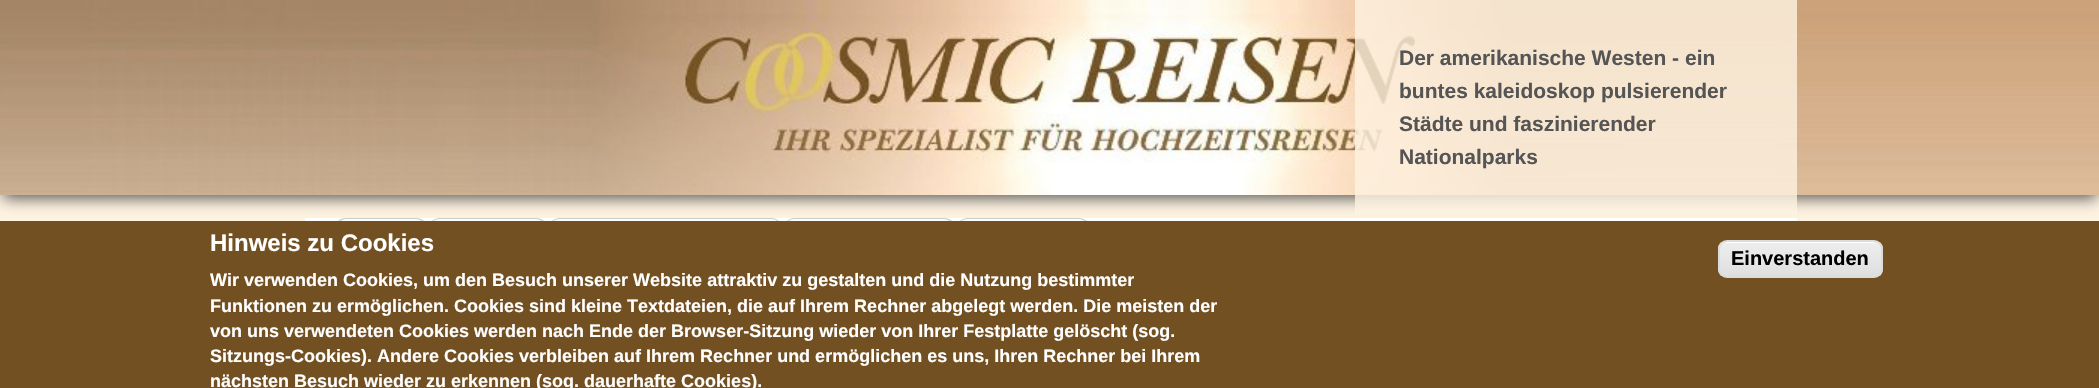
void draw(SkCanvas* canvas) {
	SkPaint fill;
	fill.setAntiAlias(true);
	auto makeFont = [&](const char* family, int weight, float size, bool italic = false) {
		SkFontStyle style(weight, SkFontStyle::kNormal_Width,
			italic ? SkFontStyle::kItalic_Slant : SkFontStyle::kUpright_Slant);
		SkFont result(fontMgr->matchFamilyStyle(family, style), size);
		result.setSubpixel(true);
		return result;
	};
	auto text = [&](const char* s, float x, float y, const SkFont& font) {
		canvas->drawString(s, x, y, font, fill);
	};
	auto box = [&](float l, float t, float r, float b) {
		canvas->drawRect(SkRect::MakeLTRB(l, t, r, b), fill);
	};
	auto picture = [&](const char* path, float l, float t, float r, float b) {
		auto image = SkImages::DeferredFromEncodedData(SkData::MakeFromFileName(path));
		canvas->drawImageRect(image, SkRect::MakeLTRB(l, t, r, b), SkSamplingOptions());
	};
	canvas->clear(0xFFFEF3E1);
	fill.setColor(0xFF505050);
	fill.setMaskFilter(SkMaskFilter::MakeBlur(kNormal_SkBlurStyle, 7.5f));
	canvas->drawRect(SkRect::MakeLTRB(3, 9, 2097, 198), fill);
	fill.setMaskFilter(nullptr);
	picture("image0.png", 0, 0, 2099, 195);
	fill.setColor(0xFFFFFFFF);
	box(305, 218, 1797, 221);
	fill.setColor(0xCCFEF3E1);
	box(1355, 0, 1797, 214);
	fill.setColor(0xFFCCCCCC);
	canvas->drawPath(SkPathBuilder().moveTo(346, 218).cubicTo(343, 218, 340, 219, 338, 221).lineTo(339, 222).cubicTo(341, 220, 344, 219, 346, 219).lineTo(416, 219).cubicTo(418, 219, 421, 220, 423, 222).lineTo(424, 221).cubicTo(422, 219, 419, 218, 416, 218).close().detach(), fill);
	canvas->drawPath(SkPathBuilder().moveTo(440, 218).lineTo(536, 218).cubicTo(539, 218, 542, 219, 544, 221).lineTo(543, 222).cubicTo(541, 220, 538, 219, 536, 219).lineTo(440, 219).cubicTo(433, 219, 428, 224, 428, 230).cubicTo(428, 223, 433, 218, 440, 218).close().detach(), fill);
	canvas->drawPath(SkPathBuilder().moveTo(560, 218).lineTo(771, 218).cubicTo(774, 218, 777, 219, 779, 221).lineTo(778, 222).cubicTo(777, 220, 774, 219, 771, 219).lineTo(560, 219).cubicTo(553, 219, 548, 224, 548, 230).cubicTo(548, 223, 553, 218, 560, 218).close().detach(), fill);
	canvas->drawPath(SkPathBuilder().moveTo(795, 218).lineTo(944, 218).cubicTo(947, 218, 950, 219, 952, 221).lineTo(951, 222).cubicTo(949, 220, 946, 219, 944, 219).lineTo(795, 219).cubicTo(788, 219, 783, 224, 783, 230).cubicTo(783, 223, 788, 218, 795, 218).close().detach(), fill);
	canvas->drawPath(SkPathBuilder().moveTo(968, 218).lineTo(1078, 218).cubicTo(1082, 218, 1084, 219, 1087, 221).lineTo(1086, 222).cubicTo(1084, 220, 1081, 219, 1078, 219).lineTo(968, 219).cubicTo(961, 219, 956, 224, 956, 230).cubicTo(956, 223, 961, 218, 968, 218).close().detach(), fill);
	fill.setColor(0xFF725022);
	box(0, 221, 2099, 388);
	canvas->save();
	canvas->clipPath(SkPathBuilder().moveTo(1727, 240).lineTo(1874, 240).cubicTo(1879, 240, 1883, 244, 1883, 249).lineTo(1883, 269).cubicTo(1883, 274, 1879, 278, 1874, 278).lineTo(1727, 278).cubicTo(1722, 278, 1718, 274, 1718, 269).lineTo(1718, 249).cubicTo(1718, 244, 1722, 240, 1727, 240).close().detach(), true);
	{
		const SkColor colors[] = {0xFFEDEDED, 0xFFDFDFDF};
		const float stops[] = {0.05f, 1};
		const SkPoint ends[] = {{1800, 242}, {1800, 276}};
		fill.setShader(SkGradientShader::MakeLinear(ends, colors, stops, 2, SkTileMode::kClamp));
		fill.setAlpha(255);
	}
	box(1718, 242, 1883, 276);
	canvas->restore();
	fill.setShader(nullptr);
	fill.setColor(0xFFFFFFFF);
	canvas->drawPath(SkPathBuilder().moveTo(1726, 243).lineTo(1874, 243).cubicTo(1878, 243, 1881, 246, 1881, 250).cubicTo(1881, 246, 1877, 242, 1873, 242).lineTo(1727, 242).cubicTo(1723, 242, 1719, 246, 1719, 250).cubicTo(1719, 246, 1722, 243, 1726, 243).close().detach(), fill);
	fill.setStyle(SkPaint::kStroke_Style);
	fill.setStrokeWidth(2);
	fill.setColor(0xFFDCDCDC);
	canvas->drawRoundRect(SkRect::MakeLTRB(1719, 241, 1882, 277), 8, 8, fill);
	auto font1 = makeFont("Liberation Sans", 700, 21);
	fill.setStyle(SkPaint::kFill_Style);
	fill.setColor(0xFF555555);
	text("Der amerikanische Westen - ein", 1399, 65, font1);
	text("buntes kaleidoskop pulsierender", 1399, 98, font1);
	text("Städte und faszinierender", 1399, 131, font1);
	text("Nationalparks", 1399, 164, font1);
	auto font2 = makeFont("Liberation Sans", 700, 24);
	fill.setColor(0xFFFFFFFF);
	text("Hinweis zu Cookies", 210, 251, font2);
	auto font3 = makeFont("Liberation Sans", 700, 18);
	text("Wir verwenden Cookies, um den Besuch unserer Website attraktiv zu gestalten und die Nutzung bestimmter", 210, 286, font3);
	text("Funktionen zu ermöglichen. Cookies sind kleine Textdateien, die auf Ihrem Rechner abgelegt werden. Die meisten der", 210, 312, font3);
	text("von uns verwendeten Cookies werden nach Ende der Browser-Sitzung wieder von Ihrer Festplatte gelöscht (sog.", 210, 337, font3);
	text("Sitzungs-Cookies). Andere Cookies verbleiben auf Ihrem Rechner und ermöglichen es uns, Ihren Rechner bei Ihrem", 210, 362, font3);
	text("nächsten Besuch wieder zu erkennen (sog. dauerhafte Cookies).", 210, 387, font3);
	auto font4 = makeFont("Liberation Sans", 700, 20);
	fill.setColor(0xFF000000);
	text("Einverstanden", 1731, 265, font4);
}
